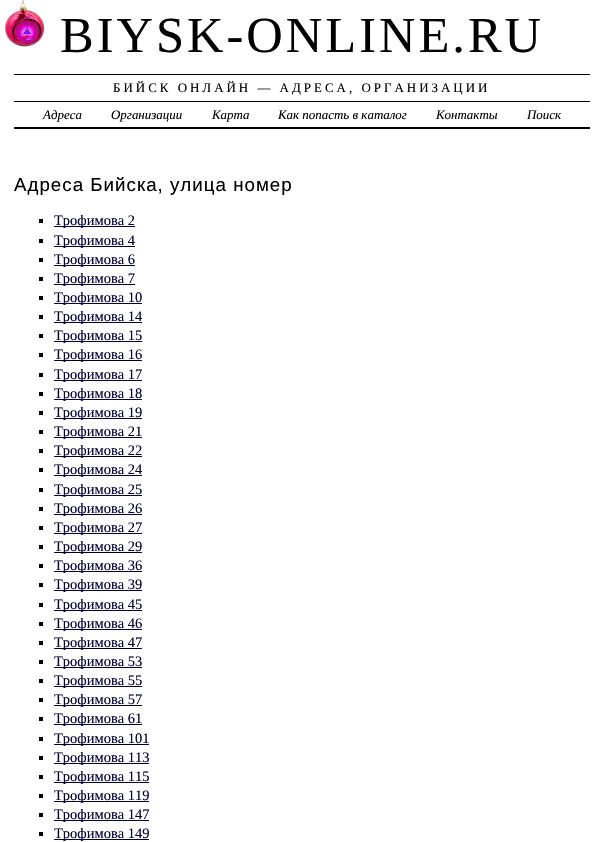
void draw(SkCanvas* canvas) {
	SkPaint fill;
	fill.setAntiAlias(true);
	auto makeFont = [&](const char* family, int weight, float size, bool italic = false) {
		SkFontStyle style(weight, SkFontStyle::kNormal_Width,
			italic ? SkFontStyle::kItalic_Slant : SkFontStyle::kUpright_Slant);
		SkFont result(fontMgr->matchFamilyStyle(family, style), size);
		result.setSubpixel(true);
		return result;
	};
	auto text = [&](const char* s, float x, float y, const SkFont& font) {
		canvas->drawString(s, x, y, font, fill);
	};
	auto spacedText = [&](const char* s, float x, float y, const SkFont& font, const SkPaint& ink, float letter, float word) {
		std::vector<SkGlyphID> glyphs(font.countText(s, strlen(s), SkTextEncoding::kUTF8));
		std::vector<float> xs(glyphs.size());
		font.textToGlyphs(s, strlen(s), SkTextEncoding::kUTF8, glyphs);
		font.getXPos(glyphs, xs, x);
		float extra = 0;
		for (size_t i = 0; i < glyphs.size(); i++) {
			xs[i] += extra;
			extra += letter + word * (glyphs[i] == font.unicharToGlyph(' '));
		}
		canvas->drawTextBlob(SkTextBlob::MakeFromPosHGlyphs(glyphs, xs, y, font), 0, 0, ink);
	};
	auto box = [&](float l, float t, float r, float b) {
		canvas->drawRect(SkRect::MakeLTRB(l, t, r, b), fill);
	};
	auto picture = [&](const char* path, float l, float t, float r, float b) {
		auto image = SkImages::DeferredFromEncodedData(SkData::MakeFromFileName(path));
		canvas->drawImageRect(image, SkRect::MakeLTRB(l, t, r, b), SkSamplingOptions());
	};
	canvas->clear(0xFFFFFFFF);
	picture("image0.png", 4, 0, 45, 47);
	fill.setColor(0xFF000000);
	box(14, 74, 590, 75);
	box(14, 101, 590, 102);
	box(14, 127, 590, 129);
	box(39, 219, 43, 223);
	fill.setColor(0xFF000033);
	box(54, 226, 135, 227);
	fill.setColor(0xFF000000);
	box(39, 239, 43, 243);
	fill.setColor(0xFF000033);
	box(54, 246, 135, 247);
	fill.setColor(0xFF000000);
	box(39, 258, 43, 262);
	fill.setColor(0xFF000033);
	box(54, 265, 135, 266);
	fill.setColor(0xFF000000);
	box(39, 277, 43, 281);
	fill.setColor(0xFF000033);
	box(54, 284, 135, 285);
	fill.setColor(0xFF000000);
	box(39, 296, 43, 300);
	fill.setColor(0xFF000033);
	box(54, 303, 142, 304);
	fill.setColor(0xFF000000);
	box(39, 315, 43, 319);
	fill.setColor(0xFF000033);
	box(54, 322, 142, 323);
	fill.setColor(0xFF000000);
	box(39, 334, 43, 338);
	fill.setColor(0xFF000033);
	box(54, 341, 142, 342);
	fill.setColor(0xFF000000);
	box(39, 353, 43, 357);
	fill.setColor(0xFF000033);
	box(54, 360, 142, 361);
	fill.setColor(0xFF000000);
	box(39, 373, 43, 377);
	fill.setColor(0xFF000033);
	box(54, 380, 142, 381);
	fill.setColor(0xFF000000);
	box(39, 392, 43, 396);
	fill.setColor(0xFF000033);
	box(54, 399, 142, 400);
	fill.setColor(0xFF000000);
	box(39, 411, 43, 415);
	fill.setColor(0xFF000033);
	box(54, 418, 142, 419);
	fill.setColor(0xFF000000);
	box(39, 430, 43, 434);
	fill.setColor(0xFF000033);
	box(54, 437, 142, 438);
	fill.setColor(0xFF000000);
	box(39, 449, 43, 453);
	fill.setColor(0xFF000033);
	box(54, 456, 142, 457);
	fill.setColor(0xFF000000);
	box(39, 468, 43, 472);
	fill.setColor(0xFF000033);
	box(54, 475, 142, 476);
	fill.setColor(0xFF000000);
	box(39, 488, 43, 492);
	fill.setColor(0xFF000033);
	box(54, 495, 142, 496);
	fill.setColor(0xFF000000);
	box(39, 507, 43, 511);
	fill.setColor(0xFF000033);
	box(54, 514, 142, 515);
	fill.setColor(0xFF000000);
	box(39, 526, 43, 530);
	fill.setColor(0xFF000033);
	box(54, 533, 142, 534);
	fill.setColor(0xFF000000);
	box(39, 545, 43, 549);
	fill.setColor(0xFF000033);
	box(54, 552, 142, 553);
	fill.setColor(0xFF000000);
	box(39, 564, 43, 568);
	fill.setColor(0xFF000033);
	box(54, 571, 142, 572);
	fill.setColor(0xFF000000);
	box(39, 583, 43, 587);
	fill.setColor(0xFF000033);
	box(54, 590, 142, 591);
	fill.setColor(0xFF000000);
	box(39, 603, 43, 607);
	fill.setColor(0xFF000033);
	box(54, 610, 142, 611);
	fill.setColor(0xFF000000);
	box(39, 622, 43, 626);
	fill.setColor(0xFF000033);
	box(54, 629, 142, 630);
	fill.setColor(0xFF000000);
	box(39, 641, 43, 645);
	fill.setColor(0xFF000033);
	box(54, 648, 142, 649);
	fill.setColor(0xFF000000);
	box(39, 660, 43, 664);
	fill.setColor(0xFF000033);
	box(54, 667, 142, 668);
	fill.setColor(0xFF000000);
	box(39, 679, 43, 683);
	fill.setColor(0xFF000033);
	box(54, 686, 142, 687);
	fill.setColor(0xFF000000);
	box(39, 698, 43, 702);
	fill.setColor(0xFF000033);
	box(54, 705, 142, 706);
	fill.setColor(0xFF000000);
	box(39, 717, 43, 721);
	fill.setColor(0xFF000033);
	box(54, 724, 142, 725);
	fill.setColor(0xFF000000);
	box(39, 737, 43, 741);
	fill.setColor(0xFF000033);
	box(54, 744, 149, 745);
	fill.setColor(0xFF000000);
	box(39, 756, 43, 760);
	fill.setColor(0xFF000033);
	box(54, 763, 149, 764);
	fill.setColor(0xFF000000);
	box(39, 775, 43, 779);
	fill.setColor(0xFF000033);
	box(54, 782, 149, 783);
	fill.setColor(0xFF000000);
	box(39, 794, 43, 798);
	fill.setColor(0xFF000033);
	box(54, 801, 149, 802);
	fill.setColor(0xFF000000);
	box(39, 813, 43, 817);
	fill.setColor(0xFF000033);
	box(54, 820, 149, 821);
	fill.setColor(0xFF000000);
	box(39, 832, 43, 836);
	fill.setColor(0xFF000033);
	box(54, 839, 149, 840);
	auto font1 = makeFont("Liberation Serif", 400, 50.5f);
	fill.setColor(0xFF000000);
	spacedText("BIYSK-ONLINE.RU", 60, 52, font1, fill, 3, 0);
	auto font2 = makeFont("Liberation Serif", 400, 12.95f);
	spacedText("БИЙСК ОНЛАЙН — АДРЕСА, ОРГАНИЗАЦИИ", 113, 92, font2, fill, 3, 0);
	auto font3 = makeFont("Liberation Serif", 400, 12.95f, true);
	text("Адреса", 43, 119, font3);
	text("Организации", 111, 119, font3);
	text("Карта", 212, 119, font3);
	text("Как попасть в каталог", 278, 119, font3);
	text("Контакты", 436, 119, font3);
	text("Поиск", 527, 119, font3);
	auto font4 = makeFont("Liberation Sans", 400, 18.75f);
	spacedText("Адреса Бийска, улица номер", 14, 191, font4, fill, 1, 0);
	auto font5 = makeFont("Liberation Serif", 400, 14.5f);
	fill.setColor(0xFF000033);
	text("Трофимова 2", 54, 225, font5);
	text("Трофимова 4", 54, 245, font5);
	text("Трофимова 6", 54, 264, font5);
	text("Трофимова 7", 54, 283, font5);
	text("Трофимова 10", 54, 302, font5);
	text("Трофимова 14", 54, 321, font5);
	text("Трофимова 15", 54, 340, font5);
	text("Трофимова 16", 54, 359, font5);
	text("Трофимова 17", 54, 379, font5);
	text("Трофимова 18", 54, 398, font5);
	text("Трофимова 19", 54, 417, font5);
	text("Трофимова 21", 54, 436, font5);
	text("Трофимова 22", 54, 455, font5);
	text("Трофимова 24", 54, 474, font5);
	text("Трофимова 25", 54, 494, font5);
	text("Трофимова 26", 54, 513, font5);
	text("Трофимова 27", 54, 532, font5);
	text("Трофимова 29", 54, 551, font5);
	text("Трофимова 36", 54, 570, font5);
	text("Трофимова 39", 54, 589, font5);
	text("Трофимова 45", 54, 609, font5);
	text("Трофимова 46", 54, 628, font5);
	text("Трофимова 47", 54, 647, font5);
	text("Трофимова 53", 54, 666, font5);
	text("Трофимова 55", 54, 685, font5);
	text("Трофимова 57", 54, 704, font5);
	text("Трофимова 61", 54, 723, font5);
	text("Трофимова 101", 54, 743, font5);
	text("Трофимова 113", 54, 762, font5);
	text("Трофимова 115", 54, 781, font5);
	text("Трофимова 119", 54, 800, font5);
	text("Трофимова 147", 54, 819, font5);
	text("Трофимова 149", 54, 838, font5);
}
